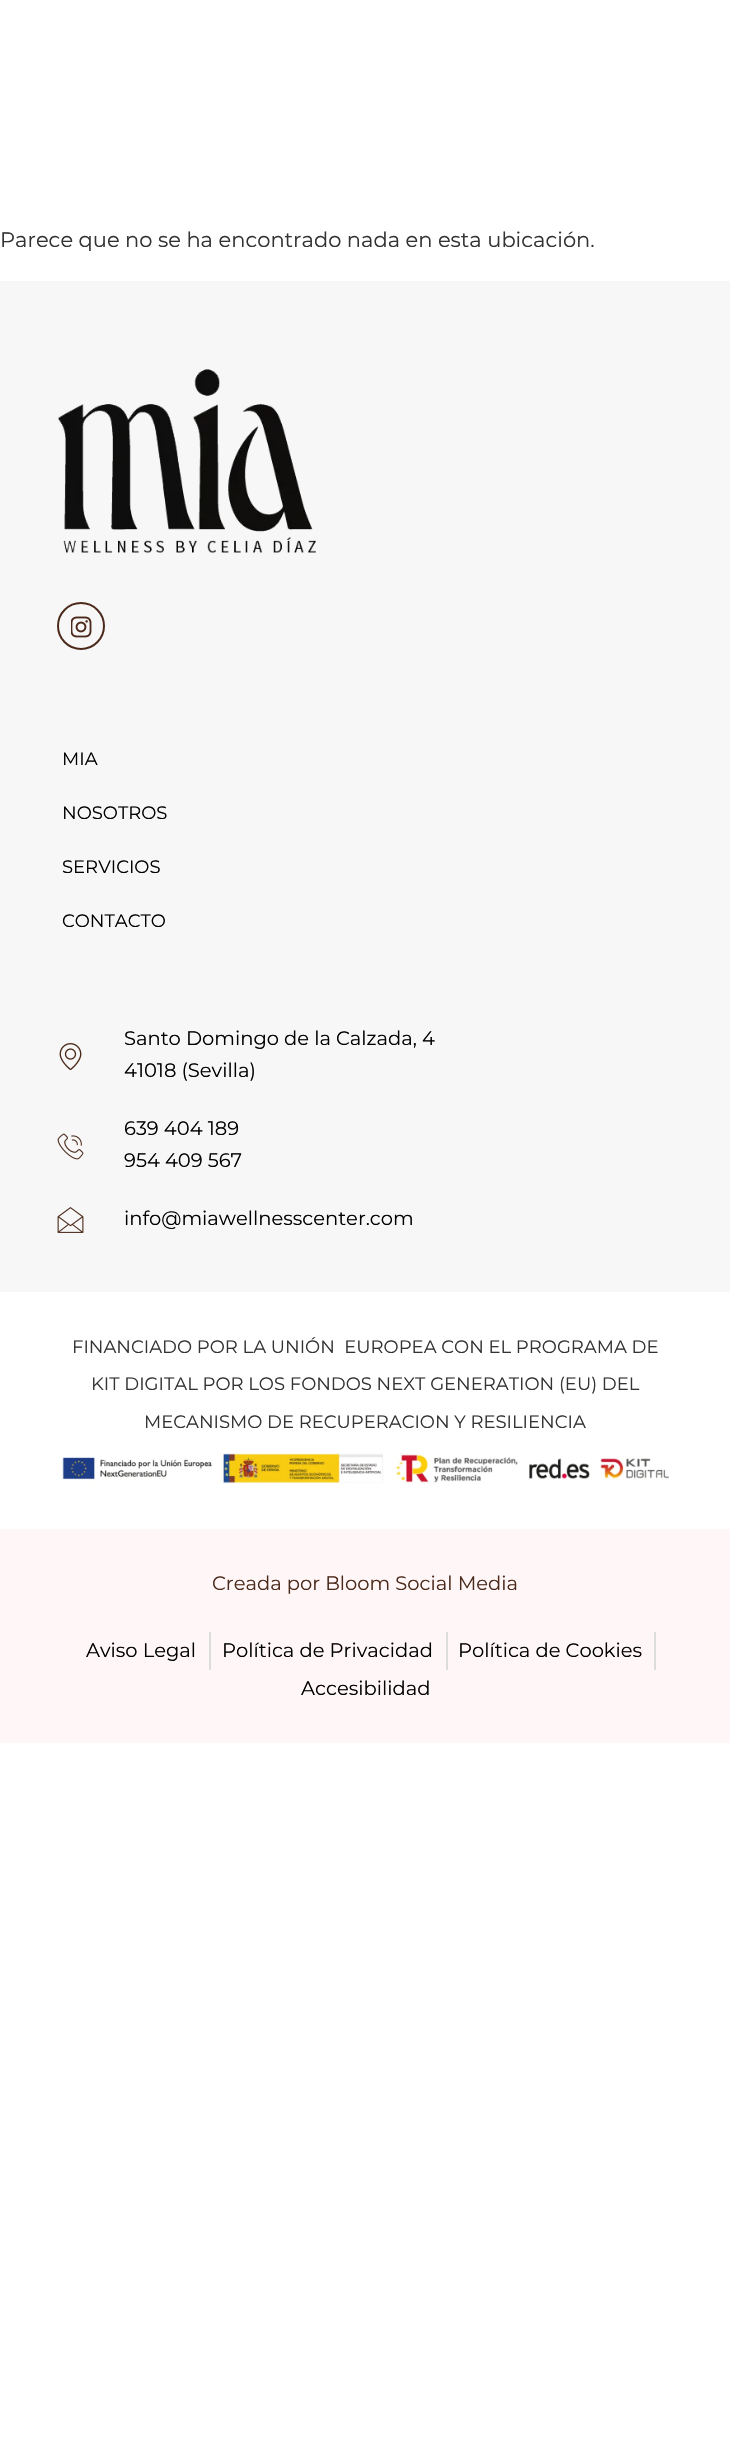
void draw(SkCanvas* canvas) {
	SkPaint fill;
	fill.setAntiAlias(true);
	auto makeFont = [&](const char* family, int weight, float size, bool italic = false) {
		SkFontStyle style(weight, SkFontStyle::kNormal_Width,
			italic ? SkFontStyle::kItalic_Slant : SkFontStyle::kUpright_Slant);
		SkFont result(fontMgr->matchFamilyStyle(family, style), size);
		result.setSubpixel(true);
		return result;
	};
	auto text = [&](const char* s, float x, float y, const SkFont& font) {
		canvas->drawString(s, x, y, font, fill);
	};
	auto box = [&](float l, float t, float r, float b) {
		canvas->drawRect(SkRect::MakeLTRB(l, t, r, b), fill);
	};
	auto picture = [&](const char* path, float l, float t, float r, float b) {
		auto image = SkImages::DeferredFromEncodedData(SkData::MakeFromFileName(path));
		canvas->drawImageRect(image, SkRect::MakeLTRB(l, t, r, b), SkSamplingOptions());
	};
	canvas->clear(0xFFFFFFFF);
	fill.setColor(0xFFF7F7F7);
	box(0, 281, 730, 1292);
	picture("image0.png", 58, 369, 316, 553);
	fill.setStyle(SkPaint::kStroke_Style);
	fill.setStrokeWidth(2);
	fill.setColor(0xFF4B2A1B);
	canvas->drawCircle(81, 626, 23, fill);
	picture("image1.png", 71, 616, 92, 638);
	picture("image2.png", 59, 1043, 82, 1070);
	picture("image3.png", 57, 1133, 84, 1160);
	picture("image4.png", 57, 1207, 84, 1233);
	picture("image5.png", 62, 1453, 669, 1484);
	fill.setStyle(SkPaint::kFill_Style);
	fill.setColor(0xFFFFF7F7);
	box(0, 1529, 730, 1743);
	fill.setColor(0xFFDDDDDD);
	box(209, 1632, 211, 1670);
	box(446, 1632, 448, 1670);
	box(654, 1632, 656, 1670);
	auto font1 = makeFont("Montserrat", 400, 21);
	fill.setColor(0xFF333333);
	text("Parece que no se ha encontrado nada en esta ubicación.", 0, 247, font1);
	auto font2 = makeFont("Montserrat", 400, 18);
	fill.setColor(0xFF000000);
	text("MIA", 62, 765, font2);
	text("NOSOTROS", 62, 819, font2);
	text("SERVICIOS", 62, 873, font2);
	text("CONTACTO", 62, 927, font2);
	auto font3 = makeFont("Montserrat", 400, 19.5f);
	text("Santo Domingo de la Calzada, 4", 124, 1045, font3);
	text("41018 (Sevilla)", 124, 1077, font3);
	text("639 404 189", 124, 1135, font3);
	text("954 409 567", 124, 1167, font3);
	text("info@miawellnesscenter.com", 124, 1225, font3);
	fill.setColor(0xFF333333);
	text("FINANCIADO POR LA UNIÓN  EUROPEA CON EL PROGRAMA DE", 72, 1353, font2);
	text("KIT DIGITAL POR LOS FONDOS NEXT GENERATION (EU) DEL", 91, 1390, font2);
	text("MECANISMO DE RECUPERACION Y RESILIENCIA", 144, 1428, font2);
	fill.setColor(0xFF4B2A1B);
	text("Creada por Bloom Social Media", 212, 1590, font3);
	fill.setColor(0xFF000000);
	text("Aviso Legal", 86, 1657, font3);
	text("Política de Privacidad", 222, 1657, font3);
	text("Política de Cookies", 458, 1657, font3);
	text("Accesibilidad", 301, 1695, font3);
}
